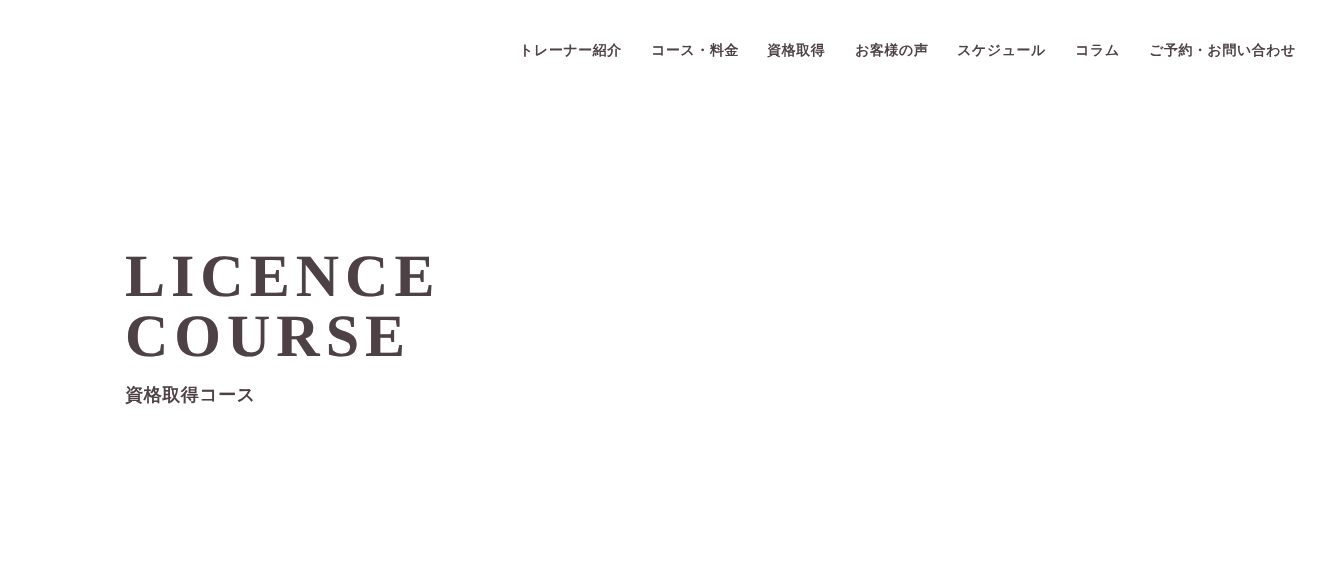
void draw(SkCanvas* canvas) {
	SkPaint fill;
	fill.setAntiAlias(true);
	auto makeFont = [&](const char* family, int weight, float size, bool italic = false) {
		SkFontStyle style(weight, SkFontStyle::kNormal_Width,
			italic ? SkFontStyle::kItalic_Slant : SkFontStyle::kUpright_Slant);
		SkFont result(fontMgr->matchFamilyStyle(family, style), size);
		result.setSubpixel(true);
		return result;
	};
	auto spacedText = [&](const char* s, float x, float y, const SkFont& font, const SkPaint& ink, float letter, float word) {
		std::vector<SkGlyphID> glyphs(font.countText(s, strlen(s), SkTextEncoding::kUTF8));
		std::vector<float> xs(glyphs.size());
		font.textToGlyphs(s, strlen(s), SkTextEncoding::kUTF8, glyphs);
		font.getXPos(glyphs, xs, x);
		float extra = 0;
		for (size_t i = 0; i < glyphs.size(); i++) {
			xs[i] += extra;
			extra += letter + word * (glyphs[i] == font.unicharToGlyph(' '));
		}
		canvas->drawTextBlob(SkTextBlob::MakeFromPosHGlyphs(glyphs, xs, y, font), 0, 0, ink);
	};
	canvas->clear(0xFFFFFFFF);
	auto font1 = makeFont("WenQuanYi Zen Hei", 700, 14);
	fill.setColor(0xFF4E4146);
	spacedText("トレーナー紹介", 519, 55, font1, fill, 0.5f, 0);
	spacedText("コース・料金", 651, 55, font1, fill, 0.5f, 0);
	spacedText("資格取得", 767, 55, font1, fill, 0.5f, 0);
	spacedText("お客様の声", 855, 55, font1, fill, 0.5f, 0);
	spacedText("スケジュール", 957, 55, font1, fill, 0.5f, 0);
	spacedText("コラム", 1075, 55, font1, fill, 0.5f, 0);
	spacedText("ご予約・お問い合わせ", 1149, 55, font1, fill, 0.5f, 0);
	auto font2 = makeFont("Liberation Serif", 700, 60);
	spacedText("LICENCE", 125, 296, font2, fill, 6, 0);
	spacedText("COURSE", 125, 356, font2, fill, 6, 0);
	auto font3 = makeFont("WenQuanYi Zen Hei", 700, 18);
	spacedText("資格取得コース", 125, 401, font3, fill, 0.5f, 0);
}
